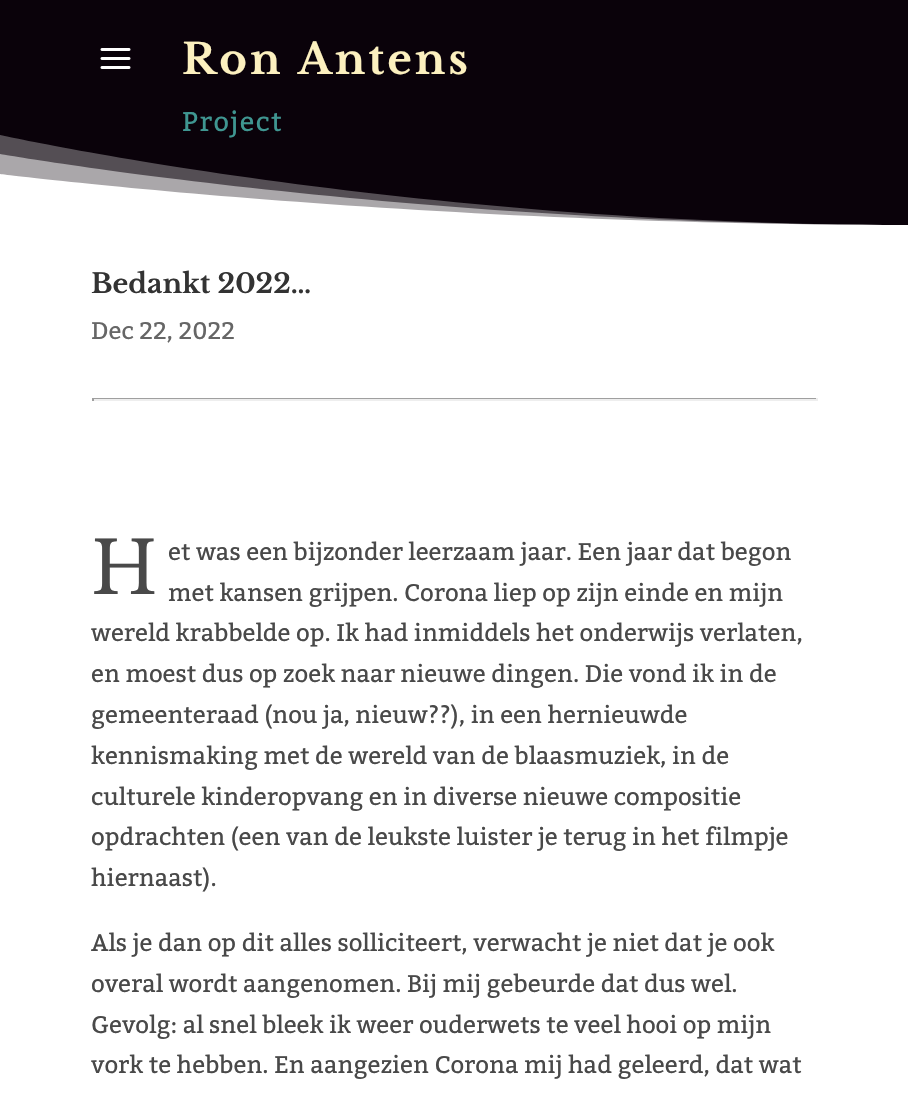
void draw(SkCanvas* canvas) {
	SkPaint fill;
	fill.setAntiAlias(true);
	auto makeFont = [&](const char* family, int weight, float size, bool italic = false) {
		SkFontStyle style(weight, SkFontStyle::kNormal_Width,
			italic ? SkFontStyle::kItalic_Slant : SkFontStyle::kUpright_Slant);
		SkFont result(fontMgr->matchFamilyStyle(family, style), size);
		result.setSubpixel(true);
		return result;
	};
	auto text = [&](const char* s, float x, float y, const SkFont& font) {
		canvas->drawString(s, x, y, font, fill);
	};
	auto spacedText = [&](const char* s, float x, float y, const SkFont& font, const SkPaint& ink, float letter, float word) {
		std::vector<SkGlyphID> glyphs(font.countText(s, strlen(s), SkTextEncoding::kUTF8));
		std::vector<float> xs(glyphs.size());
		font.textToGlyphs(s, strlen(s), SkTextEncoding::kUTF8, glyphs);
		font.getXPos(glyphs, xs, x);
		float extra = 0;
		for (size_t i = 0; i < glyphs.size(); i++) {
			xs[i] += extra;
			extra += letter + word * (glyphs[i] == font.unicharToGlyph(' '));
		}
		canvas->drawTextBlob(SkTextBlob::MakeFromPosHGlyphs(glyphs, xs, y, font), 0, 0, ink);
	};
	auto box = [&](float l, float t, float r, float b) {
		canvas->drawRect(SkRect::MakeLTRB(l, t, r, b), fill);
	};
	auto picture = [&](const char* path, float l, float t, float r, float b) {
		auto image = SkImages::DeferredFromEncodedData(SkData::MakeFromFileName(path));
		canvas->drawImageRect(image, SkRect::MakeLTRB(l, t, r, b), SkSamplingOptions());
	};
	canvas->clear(0xFFFFFFFF);
	fill.setColor(0xFF0A020A);
	box(0, 0, 908, 225);
	fill.setColor(0xFF544E54);
	canvas->drawPath(SkPathBuilder().moveTo(0, 225).lineTo(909, 225).cubicTo(407, 225, 0, 135, 0, 135).close().detach(), fill);
	fill.setColor(0x80FFFFFF);
	canvas->drawPath(SkPathBuilder().moveTo(0, 225).lineTo(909, 225).cubicTo(407, 225, 0, 154, 0, 154).close().detach(), fill);
	fill.setColor(0xFFFFFFFF);
	canvas->drawPath(SkPathBuilder().moveTo(0, 225).lineTo(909, 225).cubicTo(407, 225, 0, 174, 0, 174).close().detach(), fill);
	fill.setColor(0xFF9F9F9F);
	box(92, 398, 818, 399);
	fill.setColor(0xFFEEEEEE);
	box(816, 398, 818, 401);
	box(92, 399, 818, 401);
	fill.setColor(0xFF9F9F9F);
	box(92, 398, 94, 401);
	picture("image0.png", 100, 48, 131, 69);
	auto font1 = makeFont("Libre Baskerville", 700, 42);
	fill.setColor(0xFFFCF0BF);
	spacedText("Ron Antens", 182, 74, font1, fill, 3, 0);
	auto font2 = makeFont("Kadwa", 400, 27);
	fill.setColor(0xFF3F9691);
	spacedText("Project", 182, 131, font2, fill, 1.5f, 0);
	auto font3 = makeFont("Libre Baskerville", 700, 27);
	fill.setColor(0xFF333333);
	text("Bedankt 2022…", 91, 293, font3);
	auto font4 = makeFont("Kadwa", 400, 24);
	fill.setColor(0xFF666666);
	text("Dec 22, 2022", 91, 339, font4);
	auto font5 = makeFont("Libre Baskerville", 400, 72);
	fill.setColor(0xFF494949);
	text("H", 91, 594, font5);
	text("et was een bijzonder leerzaam jaar. Een jaar dat begon", 168, 560, font4);
	text("met kansen grijpen. Corona liep op zijn einde en mijn", 168, 601, font4);
	text("wereld krabbelde op. Ik had inmiddels het onderwijs verlaten,", 91, 641, font4);
	text("en moest dus op zoek naar nieuwe dingen. Die vond ik in de", 91, 682, font4);
	text("gemeenteraad (nou ja, nieuw?\077), in een hernieuwde", 91, 723, font4);
	text("kennismaking met de wereld van de blaasmuziek, in de", 91, 764, font4);
	text("culturele kinderopvang en in diverse nieuwe compositie", 91, 805, font4);
	text("opdrachten (een van de leukste luister je terug in het filmpje", 91, 845, font4);
	text("hiernaast).", 91, 886, font4);
	text("Als je dan op dit alles solliciteert, verwacht je niet dat je ook", 91, 951, font4);
	text("overal wordt aangenomen. Bij mij gebeurde dat dus wel.", 91, 992, font4);
	text("Gevolg: al snel bleek ik weer ouderwets te veel hooi op mijn", 91, 1033, font4);
	text("vork te hebben. En aangezien Corona mij had geleerd, dat wat", 91, 1073, font4);
}
